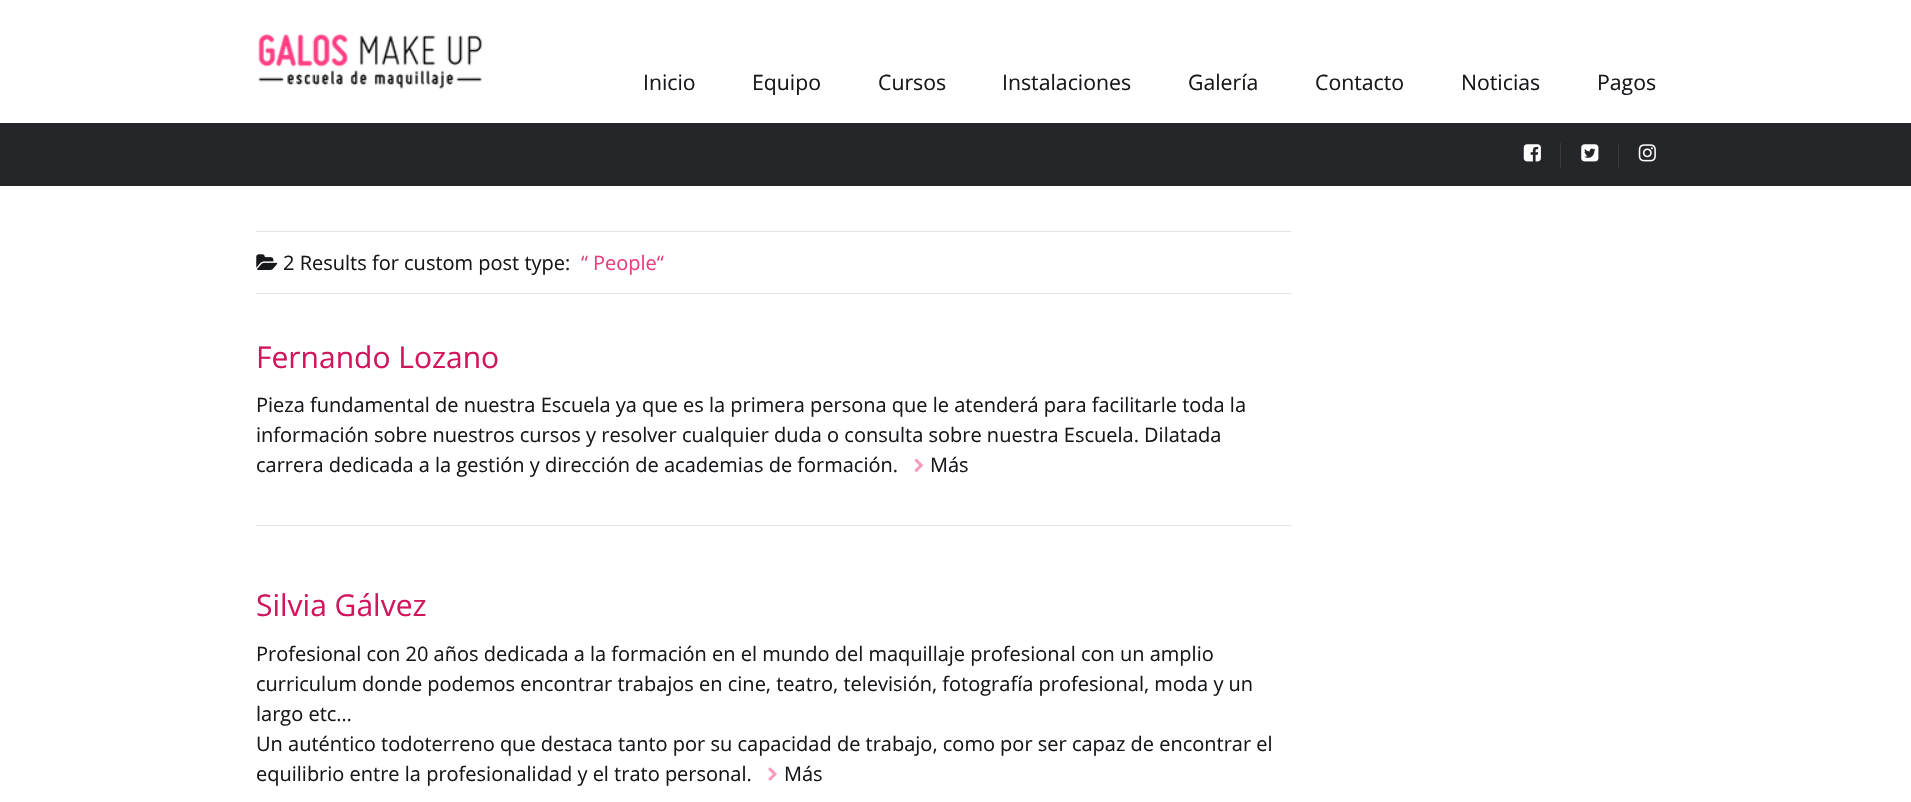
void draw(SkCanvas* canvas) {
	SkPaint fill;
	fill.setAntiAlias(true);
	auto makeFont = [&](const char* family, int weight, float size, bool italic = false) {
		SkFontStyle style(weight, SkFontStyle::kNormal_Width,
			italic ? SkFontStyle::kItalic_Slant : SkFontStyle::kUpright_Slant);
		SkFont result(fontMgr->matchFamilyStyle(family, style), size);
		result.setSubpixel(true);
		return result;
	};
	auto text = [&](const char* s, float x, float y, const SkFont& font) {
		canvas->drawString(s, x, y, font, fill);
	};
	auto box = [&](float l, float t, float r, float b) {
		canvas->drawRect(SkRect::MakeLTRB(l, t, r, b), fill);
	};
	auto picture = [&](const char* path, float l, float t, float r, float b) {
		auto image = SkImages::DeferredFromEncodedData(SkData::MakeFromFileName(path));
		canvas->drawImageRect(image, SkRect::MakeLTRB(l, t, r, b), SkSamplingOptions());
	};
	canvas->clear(0xFFFFFFFF);
	picture("image0.png", 258, 33, 483, 89);
	fill.setColor(0xFF25262A);
	box(0, 123, 1911, 186);
	picture("image1.png", 1523, 144, 1541, 162);
	fill.setColor(0xFF3B3C3F);
	box(1560, 143, 1561, 168);
	picture("image2.png", 1581, 144, 1599, 162);
	box(1618, 143, 1619, 168);
	picture("image3.png", 1638, 144, 1656, 162);
	fill.setColor(0xFFE3E3E3);
	box(256, 231, 1291, 232);
	box(256, 293, 1291, 294);
	picture("image4.png", 256, 254, 278, 270);
	picture("image5.png", 914, 458, 924, 472);
	box(256, 525, 1291, 526);
	picture("image6.png", 768, 767, 777, 781);
	auto font1 = makeFont("Open Sans", 400, 21.25f);
	fill.setColor(0xFF17181B);
	text("Inicio", 643, 90, font1);
	text("Equipo", 752, 90, font1);
	text("Cursos", 878, 90, font1);
	text("Instalaciones", 1002, 90, font1);
	text("Galería", 1188, 90, font1);
	text("Contacto", 1315, 90, font1);
	text("Noticias", 1461, 90, font1);
	text("Pagos", 1597, 90, font1);
	auto font2 = makeFont("Open Sans", 400, 20);
	text("2 Results for custom post type:", 283, 270, font2);
	fill.setColor(0xFFEA3D7E);
	text("“", 581, 270, font2);
	text("People“", 593, 270, font2);
	auto font3 = makeFont("Open Sans", 400, 30);
	fill.setColor(0xFFD2165D);
	text("Fernando Lozano", 256, 368, font3);
	fill.setColor(0xFF17181B);
	text("Pieza fundamental de nuestra Escuela ya que es la primera persona que le atenderá para facilitarle toda la", 256, 412, font2);
	text("información sobre nuestros cursos y resolver cualquier duda o consulta sobre nuestra Escuela. Dilatada", 256, 442, font2);
	text("carrera dedicada a la gestión y dirección de academias de formación.", 256, 472, font2);
	text("Más", 930, 472, font2);
	fill.setColor(0xFFD2165D);
	text("Silvia Gálvez", 256, 616, font3);
	fill.setColor(0xFF17181B);
	text("Profesional con 20 años dedicada a la formación en el mundo del maquillaje profesional con un amplio", 256, 661, font2);
	text("curriculum donde podemos encontrar trabajos en cine, teatro, televisión, fotografía profesional, moda y un", 256, 691, font2);
	text("largo etc…", 256, 721, font2);
	text("Un auténtico todoterreno que destaca tanto por su capacidad de trabajo, como por ser capaz de encontrar el", 256, 751, font2);
	text("equilibrio entre la profesionalidad y el trato personal.", 256, 781, font2);
	text("Más", 784, 781, font2);
}
